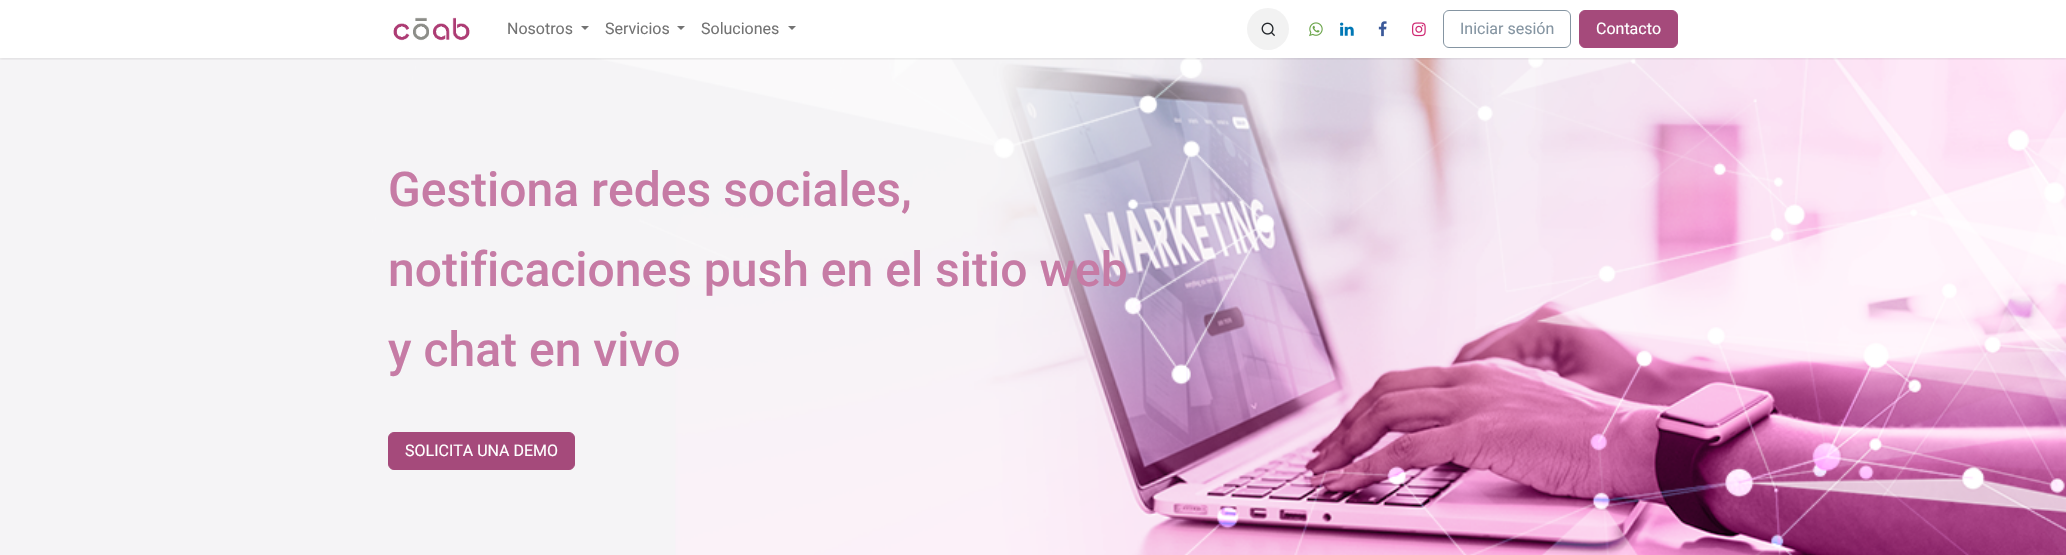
void draw(SkCanvas* canvas) {
	SkPaint fill;
	fill.setAntiAlias(true);
	auto makeFont = [&](const char* family, int weight, float size, bool italic = false) {
		SkFontStyle style(weight, SkFontStyle::kNormal_Width,
			italic ? SkFontStyle::kItalic_Slant : SkFontStyle::kUpright_Slant);
		SkFont result(fontMgr->matchFamilyStyle(family, style), size);
		result.setSubpixel(true);
		return result;
	};
	auto text = [&](const char* s, float x, float y, const SkFont& font) {
		canvas->drawString(s, x, y, font, fill);
	};
	auto picture = [&](const char* path, float l, float t, float r, float b) {
		auto image = SkImages::DeferredFromEncodedData(SkData::MakeFromFileName(path));
		canvas->drawImageRect(image, SkRect::MakeLTRB(l, t, r, b), SkSamplingOptions());
	};
	canvas->clear(0xFFFFFFFF);
	picture("image6.png", 0, 58, 2066, 555);
	canvas->save();
	canvas->clipRect(SkRect::MakeLTRB(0, 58, 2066, 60));
	fill.setColor(0x1A000000);
	fill.setMaskFilter(SkMaskFilter::MakeBlur(kNormal_SkBlurStyle, 1.5f));
	canvas->drawRect(SkRect::MakeLTRB(0, 1, 2066, 59), fill);
	fill.setMaskFilter(nullptr);
	canvas->restore();
	picture("image0.png", 393, 17, 470, 41);
	fill.setColor(0xFF737373);
	canvas->drawPath(SkPathBuilder().moveTo(581, 26).lineTo(589, 26).lineTo(585, 30).close().detach(), fill);
	canvas->drawPath(SkPathBuilder().moveTo(677, 26).lineTo(685, 26).lineTo(681, 30).close().detach(), fill);
	canvas->drawPath(SkPathBuilder().moveTo(788, 26).lineTo(796, 26).lineTo(792, 30).close().detach(), fill);
	fill.setColor(0xFFF2F2F2);
	canvas->drawCircle(1268, 29, 21, fill);
	picture("image1.png", 1261, 22, 1275, 37);
	picture("image2.png", 1309, 22, 1323, 37);
	picture("image3.png", 1340, 22, 1354, 36);
	picture("image4.png", 1378, 21, 1387, 37);
	picture("image5.png", 1412, 22, 1426, 37);
	fill.setStyle(SkPaint::kStroke_Style);
	fill.setStrokeWidth(1);
	fill.setColor(0xFF8595A2);
	canvas->drawRoundRect(SkRect::MakeLTRB(1443.5f, 10.5f, 1570.5f, 47.5f), 5.5f, 5.5f, fill);
	fill.setStyle(SkPaint::kFill_Style);
	fill.setColor(0xFFA54A7B);
	canvas->drawRoundRect(SkRect::MakeLTRB(1579.5f, 10.5f, 1677.5f, 47.5f), 5.5f, 5.5f, fill);
	fill.setStyle(SkPaint::kStroke_Style);
	canvas->drawRoundRect(SkRect::MakeLTRB(1579.5f, 10.5f, 1677.5f, 47.5f), 5.5f, 5.5f, fill);
	fill.setStyle(SkPaint::kFill_Style);
	canvas->drawRoundRect(SkRect::MakeLTRB(388.5f, 432.5f, 574.5f, 469.5f), 5.5f, 5.5f, fill);
	fill.setStyle(SkPaint::kStroke_Style);
	canvas->drawRoundRect(SkRect::MakeLTRB(388.5f, 432.5f, 574.5f, 469.5f), 5.5f, 5.5f, fill);
	auto font1 = makeFont("Roboto", 400, 16);
	fill.setStyle(SkPaint::kFill_Style);
	fill.setColor(0xFF737373);
	text("Nosotros", 507, 34, font1);
	text("Servicios", 605, 34, font1);
	text("Soluciones", 701, 34, font1);
	fill.setColor(0xFF8595A2);
	text("Iniciar sesión", 1460, 34, font1);
	fill.setColor(0xFFFFFFFF);
	text("Contacto", 1596, 34, font1);
	auto font2 = makeFont("Roboto", 500, 48);
	fill.setColor(0xFFC67BA5);
	text("Gestiona redes sociales,", 388, 206, font2);
	text("notificaciones push en el sitio web", 388, 286, font2);
	text("y chat en vivo", 388, 366, font2);
	fill.setColor(0xFFFFFFFF);
	text("SOLICITA UNA DEMO", 405, 456, font1);
}
